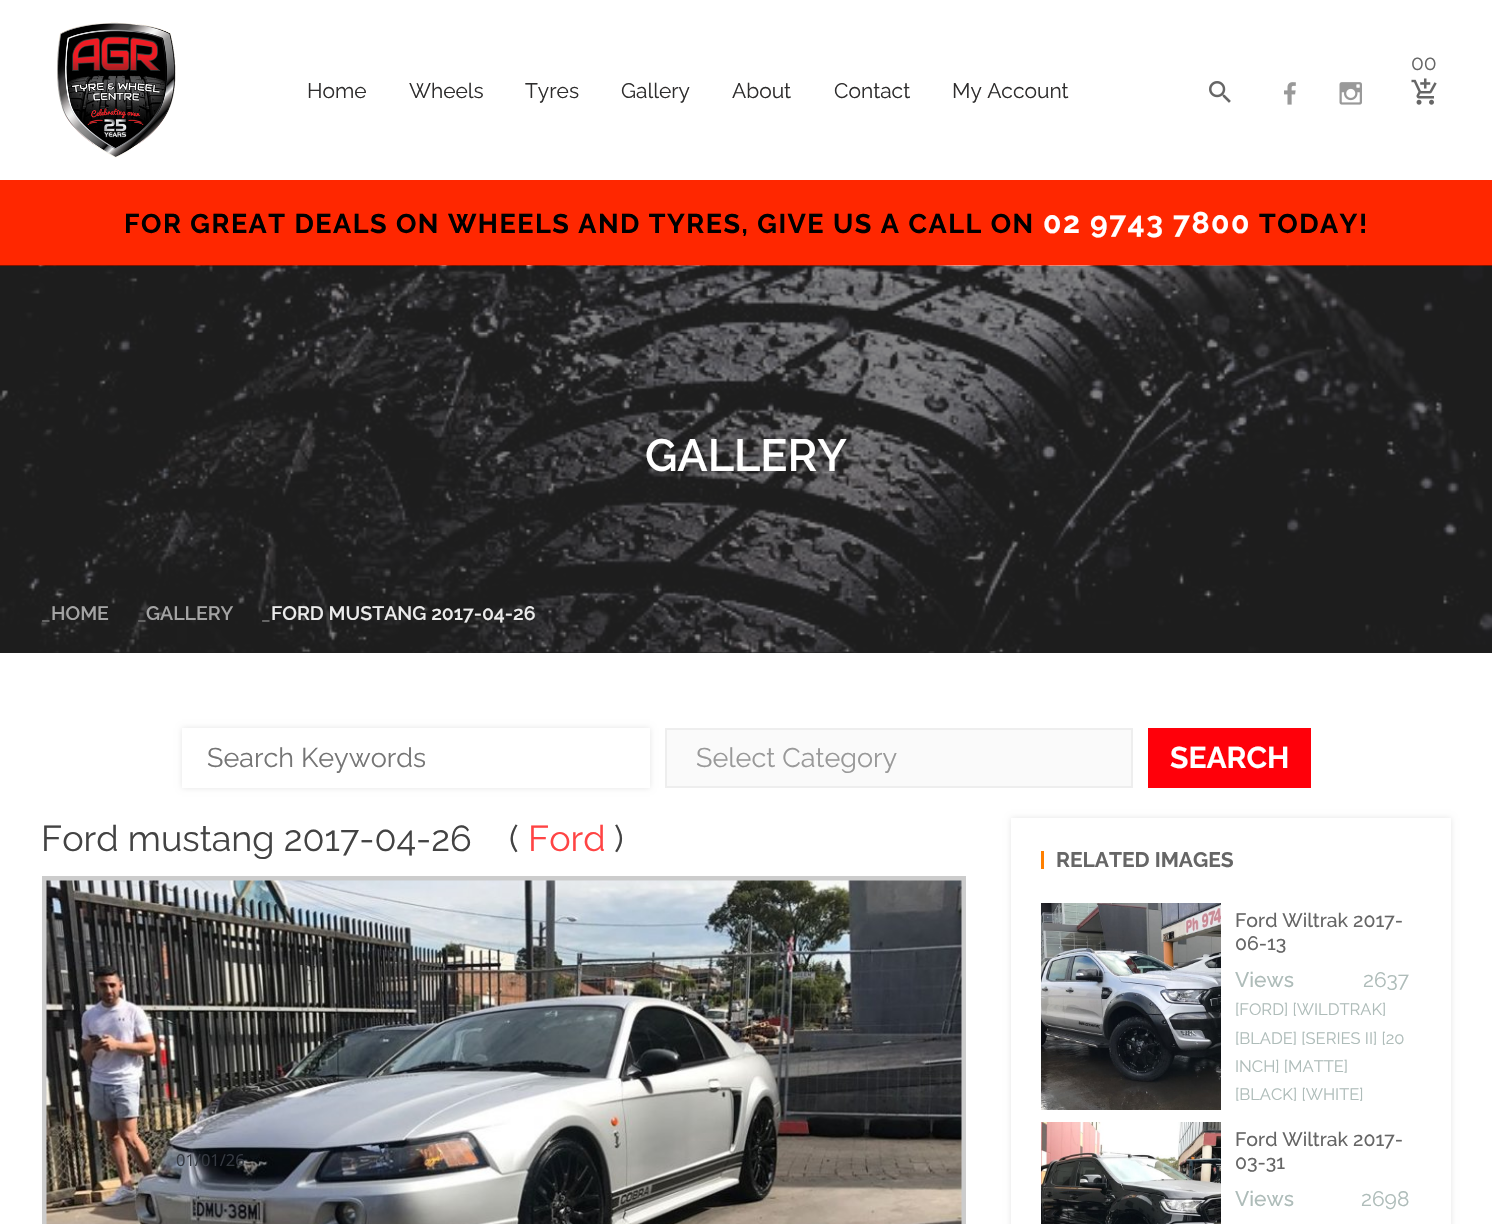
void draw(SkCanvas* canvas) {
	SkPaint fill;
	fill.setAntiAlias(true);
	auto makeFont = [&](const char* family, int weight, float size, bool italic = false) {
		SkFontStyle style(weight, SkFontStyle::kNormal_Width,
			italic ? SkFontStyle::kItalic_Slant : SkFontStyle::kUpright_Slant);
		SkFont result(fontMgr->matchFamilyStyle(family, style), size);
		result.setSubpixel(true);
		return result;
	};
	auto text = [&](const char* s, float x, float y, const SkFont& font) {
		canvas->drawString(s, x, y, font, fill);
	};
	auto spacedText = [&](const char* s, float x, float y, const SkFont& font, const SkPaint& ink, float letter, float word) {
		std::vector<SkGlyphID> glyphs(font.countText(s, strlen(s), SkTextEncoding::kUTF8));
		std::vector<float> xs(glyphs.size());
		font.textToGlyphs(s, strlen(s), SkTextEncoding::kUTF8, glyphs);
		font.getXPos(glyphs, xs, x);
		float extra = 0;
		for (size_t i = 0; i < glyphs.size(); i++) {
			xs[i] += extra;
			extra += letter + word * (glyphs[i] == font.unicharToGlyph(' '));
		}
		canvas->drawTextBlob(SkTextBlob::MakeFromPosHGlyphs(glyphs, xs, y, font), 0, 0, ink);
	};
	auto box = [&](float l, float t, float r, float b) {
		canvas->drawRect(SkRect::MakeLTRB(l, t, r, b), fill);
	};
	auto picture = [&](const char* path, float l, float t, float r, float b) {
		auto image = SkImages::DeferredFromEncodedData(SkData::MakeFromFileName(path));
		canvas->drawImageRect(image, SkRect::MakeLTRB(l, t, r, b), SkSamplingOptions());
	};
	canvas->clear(0xFFFFFFFF);
	picture("image0.png", 57, 22, 176, 158);
	picture("image1.png", 1411, 78, 1437, 105);
	picture("image2.png", 1209, 81, 1231, 103);
	picture("image3.png", 1284, 82, 1296, 105);
	picture("image4.png", 1339, 82, 1362, 105);
	fill.setColor(0xFFFF2700);
	box(0, 180, 1492, 266);
	fill.setColor(0xFF1D1D1D);
	box(0, 652, 1492, 653);
	picture("image5.png", 0, 265, 1492, 653);
	fill.setColor(0x1A000000);
	fill.setMaskFilter(SkMaskFilter::MakeBlur(kNormal_SkBlurStyle, 3));
	canvas->drawRect(SkRect::MakeLTRB(182, 728, 650, 788), fill);
	fill.setMaskFilter(nullptr);
	fill.setColor(0xFFFFFFFF);
	box(182, 728, 650, 788);
	fill.setColor(0xFFFAFAFA);
	canvas->drawRect(SkRect::MakeLTRB(666, 729, 1132, 787), fill);
	fill.setStyle(SkPaint::kStroke_Style);
	fill.setStrokeWidth(2);
	fill.setColor(0xFFEEEEEE);
	canvas->drawRect(SkRect::MakeLTRB(666, 729, 1132, 787), fill);
	fill.setStyle(SkPaint::kFill_Style);
	fill.setColor(0xFFFF000A);
	box(1148, 728, 1311, 788);
	fill.setColor(0xFFCCCCCC);
	box(42, 876, 966, 1224);
	picture("image6.png", 46, 880, 962, 1224);
	canvas->save();
	canvas->clipPath(SkPathBuilder(SkPathFillType::kEvenOdd).moveTo(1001, 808).lineTo(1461, 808).lineTo(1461, 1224).lineTo(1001, 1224).close().moveTo(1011, 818).lineTo(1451, 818).lineTo(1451, 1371).lineTo(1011, 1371).close().detach(), true);
	fill.setColor(0x1A000000);
	fill.setMaskFilter(SkMaskFilter::MakeBlur(kNormal_SkBlurStyle, 3));
	canvas->drawRect(SkRect::MakeLTRB(1011, 818, 1451, 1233), fill);
	fill.setMaskFilter(nullptr);
	canvas->restore();
	fill.setColor(0xFFFF7F00);
	box(1041, 851, 1044, 869);
	picture("image7.png", 1041, 903, 1221, 1110);
	picture("image8.png", 1041, 1122, 1221, 1224);
	auto font1 = makeFont("Raleway", 400, 21);
	fill.setColor(0xFF666666);
	text("00", 1411, 70, font1);
	fill.setColor(0xFF2E2D2D);
	text("Home", 307, 98, font1);
	text("Wheels", 409, 98, font1);
	text("Tyres", 525, 98, font1);
	text("Gallery", 621, 98, font1);
	text("About", 732, 98, font1);
	text("Contact", 834, 98, font1);
	text("My Account", 952, 98, font1);
	auto font2 = makeFont("Raleway", 700, 27);
	fill.setColor(0xFF000000);
	spacedText("FOR GREAT DEALS ON WHEELS AND TYRES, GIVE US A CALL ON", 124, 233, font2, fill, 1.5f, 0);
	auto font3 = makeFont("Raleway", 700, 30);
	fill.setColor(0xFFFFFFFF);
	spacedText("02 9743 7800", 1043, 233, font3, fill, 1.5f, 0);
	fill.setColor(0xFF000000);
	spacedText("TODAY!", 1259, 233, font2, fill, 1.5f, 0);
	auto font4 = makeFont("Raleway", 600, 45);
	fill.setColor(0xFFFFFFFF);
	text("GALLERY", 645, 471, font4);
	auto font5 = makeFont("Raleway", 600, 19.5f);
	fill.setColor(0xFF666666);
	text("_", 41, 620, font5);
	fill.setColor(0xFFA4A4A4);
	text("HOME", 51, 620, font5);
	fill.setColor(0xFF666666);
	text("_", 137, 620, font5);
	fill.setColor(0xFFA4A4A4);
	text("GALLERY", 146, 620, font5);
	fill.setColor(0xFF666666);
	text("_", 261, 620, font5);
	fill.setColor(0xFFECECEC);
	text("FORD MUSTANG 2017-04-26", 271, 620, font5);
	auto font6 = makeFont("Raleway", 400, 27);
	fill.setColor(0xFF757575);
	text("Search Keywords", 207, 767, font6);
	fill.setColor(0xFF999999);
	text("Select Category", 696, 767, font6);
	fill.setColor(0xFFFFFFFF);
	text("SEARCH", 1170, 768, font3);
	auto font7 = makeFont("Raleway", 400, 36);
	fill.setColor(0xFF434343);
	text("Ford mustang 2017-04-26", 41, 851, font7);
	text("(", 509, 851, font7);
	fill.setColor(0xFFFF4444);
	text("Ford", 528, 851, font7);
	fill.setColor(0xFF434343);
	text(")", 614, 851, font7);
	auto font8 = makeFont("Raleway", 700, 21);
	fill.setColor(0xFF666666);
	text("RELATED IMAGES", 1056, 867, font8);
	auto font9 = makeFont("Raleway", 500, 19.5f);
	text("Ford Wiltrak 2017-", 1235, 927, font9);
	text("06-13", 1235, 950, font9);
	auto font10 = makeFont("Raleway", 500, 21);
	fill.setColor(0xFFAEBCB9);
	text("Views", 1235, 987, font10);
	text("2637", 1363, 987, font1);
	auto font11 = makeFont("Raleway", 400, 16.5f);
	text("[FORD] [WILDTRAK]", 1235, 1015, font11);
	text("[BLADE] [SERIES II] [20", 1235, 1044, font11);
	text("INCH] [MATTE]", 1235, 1072, font11);
	text("[BLACK] [WHITE]", 1235, 1100, font11);
	fill.setColor(0xFF666666);
	text("Ford Wiltrak 2017-", 1235, 1146, font9);
	text("03-31", 1235, 1169, font9);
	fill.setColor(0xFFAEBCB9);
	text("Views", 1235, 1206, font10);
	text("2698", 1361, 1206, font1);
	auto font12 = makeFont("Open Sans", 400, 16.5f);
	fill.setColor(0xFF353941);
	text("01/01/26", 176, 1166, font12);
}
